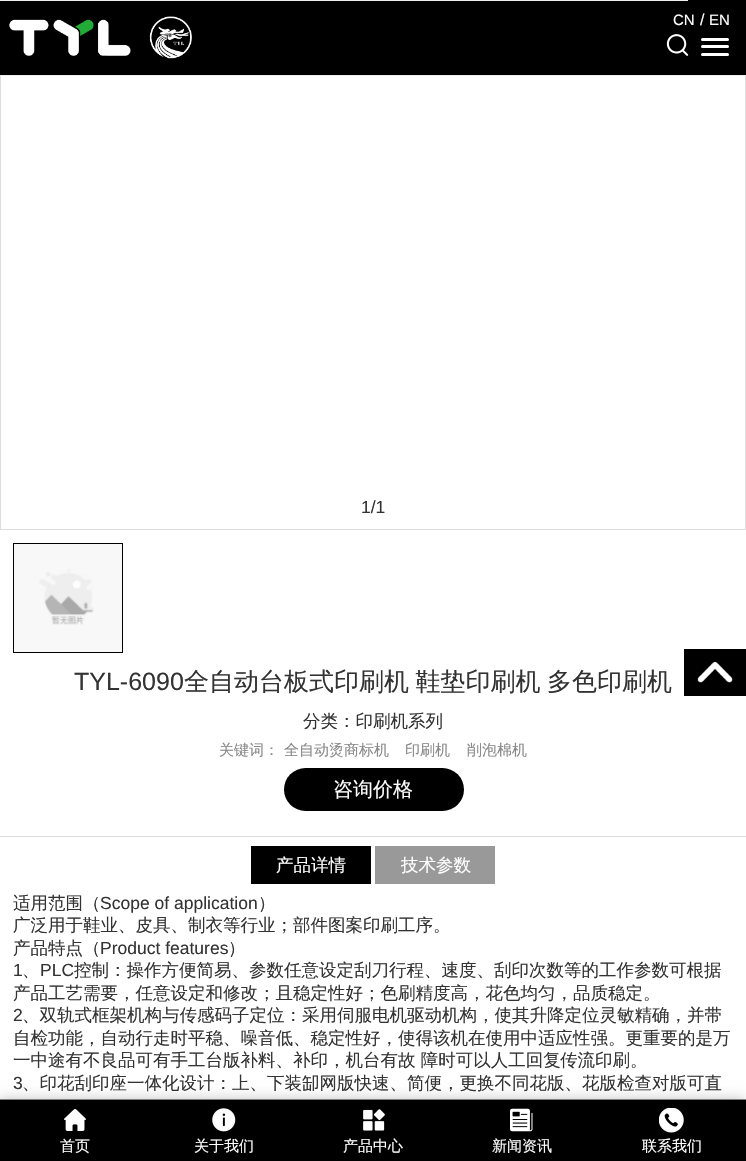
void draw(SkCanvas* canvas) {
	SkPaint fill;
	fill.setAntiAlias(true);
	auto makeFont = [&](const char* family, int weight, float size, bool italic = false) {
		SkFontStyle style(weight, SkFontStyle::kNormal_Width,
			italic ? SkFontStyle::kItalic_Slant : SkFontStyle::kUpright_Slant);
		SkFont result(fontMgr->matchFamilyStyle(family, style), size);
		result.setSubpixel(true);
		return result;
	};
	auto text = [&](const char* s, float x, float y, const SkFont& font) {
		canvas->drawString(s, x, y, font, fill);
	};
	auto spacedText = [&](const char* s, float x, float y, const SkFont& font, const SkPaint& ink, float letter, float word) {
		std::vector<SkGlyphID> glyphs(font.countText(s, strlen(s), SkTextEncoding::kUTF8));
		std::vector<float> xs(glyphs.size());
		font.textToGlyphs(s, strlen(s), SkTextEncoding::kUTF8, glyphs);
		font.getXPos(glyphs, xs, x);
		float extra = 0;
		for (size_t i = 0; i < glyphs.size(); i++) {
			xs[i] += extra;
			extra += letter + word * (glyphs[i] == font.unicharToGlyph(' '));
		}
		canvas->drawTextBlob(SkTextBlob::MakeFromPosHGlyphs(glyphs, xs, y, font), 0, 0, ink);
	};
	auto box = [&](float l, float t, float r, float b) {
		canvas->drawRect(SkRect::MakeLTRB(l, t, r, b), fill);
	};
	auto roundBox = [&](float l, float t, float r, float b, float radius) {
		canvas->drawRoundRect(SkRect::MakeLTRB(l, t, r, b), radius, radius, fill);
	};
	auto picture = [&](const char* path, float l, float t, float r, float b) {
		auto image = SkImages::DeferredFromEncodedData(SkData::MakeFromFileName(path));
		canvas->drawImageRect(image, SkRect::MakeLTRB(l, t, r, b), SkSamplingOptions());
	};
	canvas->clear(0xFFFFFFFF);
	fill.setStyle(SkPaint::kStroke_Style);
	fill.setStrokeWidth(1);
	fill.setColor(0xFFDDDDDD);
	canvas->drawRect(SkRect::MakeLTRB(0.5f, -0.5f, 745.5f, 529.5f), fill);
	fill.setStyle(SkPaint::kFill_Style);
	fill.setColor(0xFFEEEEEE);
	box(0, 75, 746, 76);
	fill.setColor(0xFF000000);
	box(0, 1, 746, 75);
	box(688, 0, 746, 1);
	picture("image0.png", 9, 16, 192, 59);
	fill.setColor(0xFFFFFFFF);
	roundBox(701, 38, 729, 41, 1.5f);
	roundBox(701, 45, 729, 48, 1.5f);
	roundBox(701, 53, 729, 56, 1.5f);
	fill.setColor(0xFFEEEEEE);
	box(0, 0, 688, 1);
	picture("image1.png", 666, 34, 689, 56);
	fill.setColor(0xFFF8F8F8);
	box(14, 544, 122, 652);
	picture("image2.png", 39, 569, 94, 625);
	fill.setStyle(SkPaint::kStroke_Style);
	fill.setColor(0xFF000000);
	canvas->drawRect(SkRect::MakeLTRB(13.5f, 543.5f, 122.5f, 652.5f), fill);
	fill.setStyle(SkPaint::kFill_Style);
	roundBox(284, 768, 464, 811, 21.5f);
	fill.setColor(0xFFDDDDDD);
	box(0, 836, 746, 837);
	fill.setColor(0xFF000000);
	box(251, 846, 371, 884);
	fill.setColor(0xFF999999);
	box(375, 846, 495, 884);
	fill.setColor(0xFF000000);
	box(684, 649, 746, 696);
	picture("image3.png", 697, 662, 733, 683);
	fill.setColor(0x33000000);
	fill.setMaskFilter(SkMaskFilter::MakeBlur(kNormal_SkBlurStyle, 6));
	canvas->drawRect(SkRect::MakeLTRB(-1, 1098, 745, 1160), fill);
	fill.setMaskFilter(nullptr);
	fill.setColor(0xFF000000);
	box(0, 1100, 746, 1161);
	fill.setColor(0xFF808080);
	box(0, 1099, 746, 1100);
	picture("image4.png", 64, 1109, 86, 1131);
	picture("image5.png", 212, 1108, 236, 1132);
	picture("image6.png", 363, 1109, 385, 1131);
	picture("image7.png", 510, 1108, 533, 1132);
	picture("image8.png", 659, 1108, 684, 1133);
	auto font1 = makeFont("Liberation Sans", 400, 15);
	fill.setColor(0xFFFFFFFF);
	text("CN", 673, 25, font1);
	auto font2 = makeFont("Liberation Sans", 400, 16);
	text("/", 700, 25, font2);
	text("EN", 709, 25, font1);
	auto font3 = makeFont("Liberation Sans", 400, 17.5f);
	fill.setColor(0xFF333333);
	text("1/1", 361, 513, font3);
	auto font4 = makeFont("Liberation Sans", 400, 25);
	text("TYL-6090", 74, 690, font4);
	auto font5 = makeFont("WenQuanYi Zen Hei", 500, 25);
	spacedText("全自动台板式印刷机 鞋垫印刷机 多色印刷机", 184, 690, font5, fill, 0, -1);
	auto font6 = makeFont("WenQuanYi Zen Hei", 500, 17.5f);
	text("分类：印刷机系列", 303, 727, font6);
	auto font7 = makeFont("WenQuanYi Zen Hei", 500, 15);
	fill.setColor(0xFF888888);
	text("关键词：", 219, 755, font7);
	text("全自动烫商标机", 284, 755, font7);
	text("印刷机", 405, 755, font7);
	text("削泡棉机", 467, 755, font7);
	auto font8 = makeFont("WenQuanYi Zen Hei", 500, 20);
	fill.setColor(0xFFFFFFFF);
	text("咨询价格", 333, 796, font8);
	text("产品详情", 276, 871, font6);
	text("技术参数", 401, 871, font6);
	fill.setColor(0xFF333333);
	text("适用范围（", 13, 909, font6);
	text("Scope of application", 100, 909, font3);
	text("）", 258, 909, font6);
	text("广泛用于鞋业、皮具、制衣等行业；部件图案印刷工序。", 13, 931, font6);
	text("产品特点（", 13, 954, font6);
	text("Product features", 100, 954, font3);
	text("）", 228, 954, font6);
	text("1", 13, 976, font3);
	text("、", 22, 976, font6);
	text("PLC", 40, 976, font3);
	text("控制：操作方便简易、参数任意设定刮刀行程、速度、刮印次数等的工作参数可根据", 74, 976, font6);
	text("产品工艺需要，任意设定和修改；且稳定性好；色刷精度高，花色均匀，品质稳定。", 13, 999, font6);
	text("2", 13, 1021, font3);
	text("、双轨式框架机构与传感码子定位：采用伺服电机驱动机构，使其升降定位灵敏精确，并带", 22, 1021, font6);
	text("自检功能，自动行走时平稳、噪音低、稳定性好，使得该机在使用中适应性强。更重要的是万", 13, 1044, font6);
	text("一中途有不良品可有手工台版补料、补印，机台有故 障时可以人工回复", 13, 1066, font6);
	text("传流印刷。", 560, 1066, font6);
	text("3", 13, 1089, font3);
	text("、印花刮印座一体化设计：上、下装缷网版快速、简便，更换不同花版、花版检查对版可直", 22, 1089, font6);
	fill.setColor(0xFFFFFFFF);
	text("首页", 60, 1151, font7);
	text("关于我们", 194, 1151, font7);
	text("产品中心", 343, 1151, font7);
	text("新闻资讯", 492, 1151, font7);
	text("联系我们", 642, 1151, font7);
}
